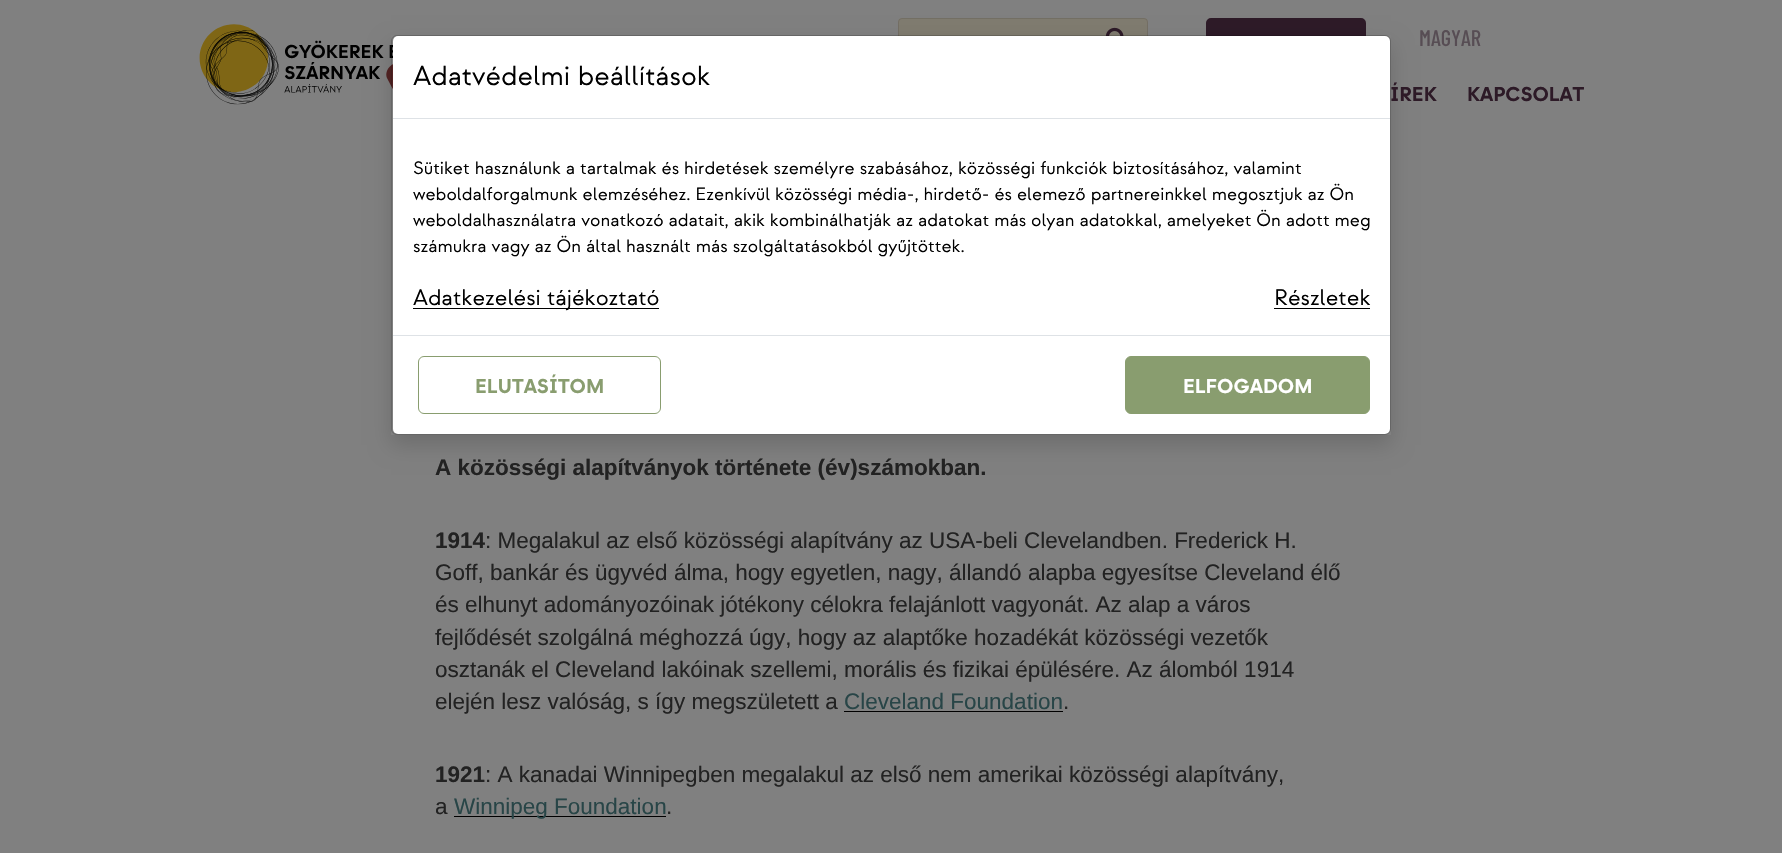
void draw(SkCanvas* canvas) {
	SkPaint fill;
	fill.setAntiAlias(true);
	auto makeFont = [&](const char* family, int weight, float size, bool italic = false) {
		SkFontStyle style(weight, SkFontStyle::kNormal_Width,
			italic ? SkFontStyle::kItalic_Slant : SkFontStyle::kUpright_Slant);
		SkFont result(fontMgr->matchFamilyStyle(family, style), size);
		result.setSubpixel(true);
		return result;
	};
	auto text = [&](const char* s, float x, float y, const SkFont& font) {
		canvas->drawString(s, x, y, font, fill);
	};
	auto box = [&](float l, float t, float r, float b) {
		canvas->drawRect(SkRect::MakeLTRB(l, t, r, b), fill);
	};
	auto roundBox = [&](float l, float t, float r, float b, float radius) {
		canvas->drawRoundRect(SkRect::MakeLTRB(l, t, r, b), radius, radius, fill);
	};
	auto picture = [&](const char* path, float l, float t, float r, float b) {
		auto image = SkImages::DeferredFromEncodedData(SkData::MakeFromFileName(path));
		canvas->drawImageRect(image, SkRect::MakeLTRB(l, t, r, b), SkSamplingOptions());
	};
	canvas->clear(0xFF808080);
	picture("image0.png", 199, 24, 394, 105);
	fill.setColor(0xFF7F7B6F);
	roundBox(898, 18, 1148, 56, 4);
	fill.setStyle(SkPaint::kStroke_Style);
	fill.setStrokeWidth(1);
	fill.setColor(0x33403B36);
	canvas->drawRoundRect(SkRect::MakeLTRB(898.5f, 18.5f, 1147.5f, 55.5f), 3.5f, 3.5f, fill);
	picture("image1.png", 1105, 27, 1124, 36);
	fill.setStyle(SkPaint::kFill_Style);
	fill.setColor(0xFF2D1A27);
	canvas->drawRoundRect(SkRect::MakeLTRB(1207.5f, 19.5f, 1364.5f, 54.5f), 3.5f, 3.5f, fill);
	fill.setStyle(SkPaint::kStroke_Style);
	fill.setStrokeWidth(3);
	canvas->drawRoundRect(SkRect::MakeLTRB(1207.5f, 19.5f, 1364.5f, 54.5f), 3.5f, 3.5f, fill);
	fill.setStyle(SkPaint::kFill_Style);
	fill.setColor(0xFF000000);
	box(844, 711, 1063, 712);
	box(454, 816, 666, 817);
	canvas->save();
	canvas->clipPath(SkPathBuilder(SkPathFillType::kEvenOdd).moveTo(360, 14).lineTo(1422, 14).lineTo(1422, 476).lineTo(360, 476).close().moveTo(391, 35).lineTo(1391, 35).lineTo(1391, 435).lineTo(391, 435).close().detach(), true);
	fill.setColor(0x26000000);
	fill.setMaskFilter(SkMaskFilter::MakeBlur(kNormal_SkBlurStyle, 10));
	canvas->drawRect(SkRect::MakeLTRB(391, 45, 1391, 445), fill);
	fill.setMaskFilter(nullptr);
	canvas->restore();
	fill.setColor(0xFFFFFFFF);
	roundBox(393, 36, 1390, 434, 5);
	fill.setStyle(SkPaint::kStroke_Style);
	fill.setStrokeWidth(1);
	fill.setColor(0x33000000);
	canvas->drawRoundRect(SkRect::MakeLTRB(391.5f, 35.5f, 1390.5f, 434.5f), 5.5f, 5.5f, fill);
	fill.setStyle(SkPaint::kFill_Style);
	fill.setColor(0xFFDEE2E6);
	box(393, 118, 1390, 119);
	fill.setColor(0xFF000000);
	box(413, 308, 659, 309);
	box(1274, 308, 1370, 309);
	fill.setColor(0xFFDEE2E6);
	box(393, 335, 1390, 336);
	fill.setStyle(SkPaint::kStroke_Style);
	fill.setColor(0xFF899D6F);
	canvas->drawRoundRect(SkRect::MakeLTRB(418.5f, 356.5f, 660.5f, 413.5f), 5.5f, 5.5f, fill);
	fill.setStyle(SkPaint::kFill_Style);
	canvas->drawRoundRect(SkRect::MakeLTRB(1125.5f, 356.5f, 1369.5f, 413.5f), 5.5f, 5.5f, fill);
	fill.setStyle(SkPaint::kStroke_Style);
	canvas->drawRoundRect(SkRect::MakeLTRB(1125.5f, 356.5f, 1369.5f, 413.5f), 5.5f, 5.5f, fill);
	auto font1 = makeFont("Barlow Condensed", 500, 22.5f);
	fill.setStyle(SkPaint::kFill_Style);
	fill.setColor(0xFF574D54);
	text("MAGYAR", 1419, 46, font1);
	auto font2 = makeFont("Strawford", 700, 20);
	fill.setColor(0xFF2D1A27);
	text("ÍREK", 1390, 101, font2);
	text("KAPCSOLAT", 1467, 101, font2);
	auto font3 = makeFont("Liberation Sans", 700, 22.5f);
	fill.setColor(0xFF222222);
	text("A közösségi alapítványok története (év)számokban.", 435, 475, font3);
	text("1914", 435, 548, font3);
	auto font4 = makeFont("Liberation Sans", 400, 22.5f);
	text(": Megalakul az első közösségi alapítvány az USA-beli Clevelandben. Frederick H.", 485, 548, font4);
	text("Goff, bankár és ügyvéd álma, hogy egyetlen, nagy, állandó alapba egyesítse Cleveland élő", 435, 580, font4);
	text("és elhunyt adományozóinak jótékony célokra felajánlott vagyonát. Az alap a város", 435, 612, font4);
	text("fejlődését szolgálná méghozzá úgy, hogy az alaptőke hozadékát közösségi vezetők", 435, 645, font4);
	text("osztanák el Cleveland lakóinak szellemi, morális és fizikai épülésére. Az álomból 1914", 435, 677, font4);
	text("elején lesz valóság, s így megszületett a", 435, 709, font4);
	fill.setColor(0xFF284547);
	text("Cleveland Foundation", 844, 709, font4);
	fill.setColor(0xFF222222);
	text(".", 1063, 709, font4);
	text("1921", 435, 782, font3);
	text(": A kanadai Winnipegben megalakul az első nem amerikai közösségi alapítvány,", 485, 782, font4);
	text("a", 435, 814, font4);
	fill.setColor(0xFF284547);
	text("Winnipeg Foundation", 454, 814, font4);
	fill.setColor(0xFF222222);
	text(".", 666, 814, font4);
	auto font5 = makeFont("Strawford", 400, 27.5f);
	fill.setColor(0xFF000000);
	text("Adatvédelmi beállítások", 413, 85, font5);
	auto font6 = makeFont("Strawford", 400, 18);
	text("Sütiket használunk a tartalmak és hirdetések személyre szabásához, közösségi funkciók biztosításához, valamint", 413, 174, font6);
	text("weboldalforgalmunk elemzéséhez. Ezenkívül közösségi média-, hirdető- és elemező partnereinkkel megosztjuk az Ön", 413, 200, font6);
	text("weboldalhasználatra vonatkozó adatait, akik kombinálhatják az adatokat más olyan adatokkal, amelyeket Ön adott meg", 413, 226, font6);
	text("számukra vagy az Ön által használt más szolgáltatásokból gyűjtöttek.", 413, 252, font6);
	auto font7 = makeFont("Strawford", 400, 22.5f);
	text("Adatkezelési tájékoztató", 413, 305, font7);
	text("Részletek", 1274, 305, font7);
	fill.setColor(0xFF899D6F);
	text("ELUTASÍTOM", 475, 393, font2);
	fill.setColor(0xFFFFFFFF);
	text("ELFOGADOM", 1183, 393, font2);
}
